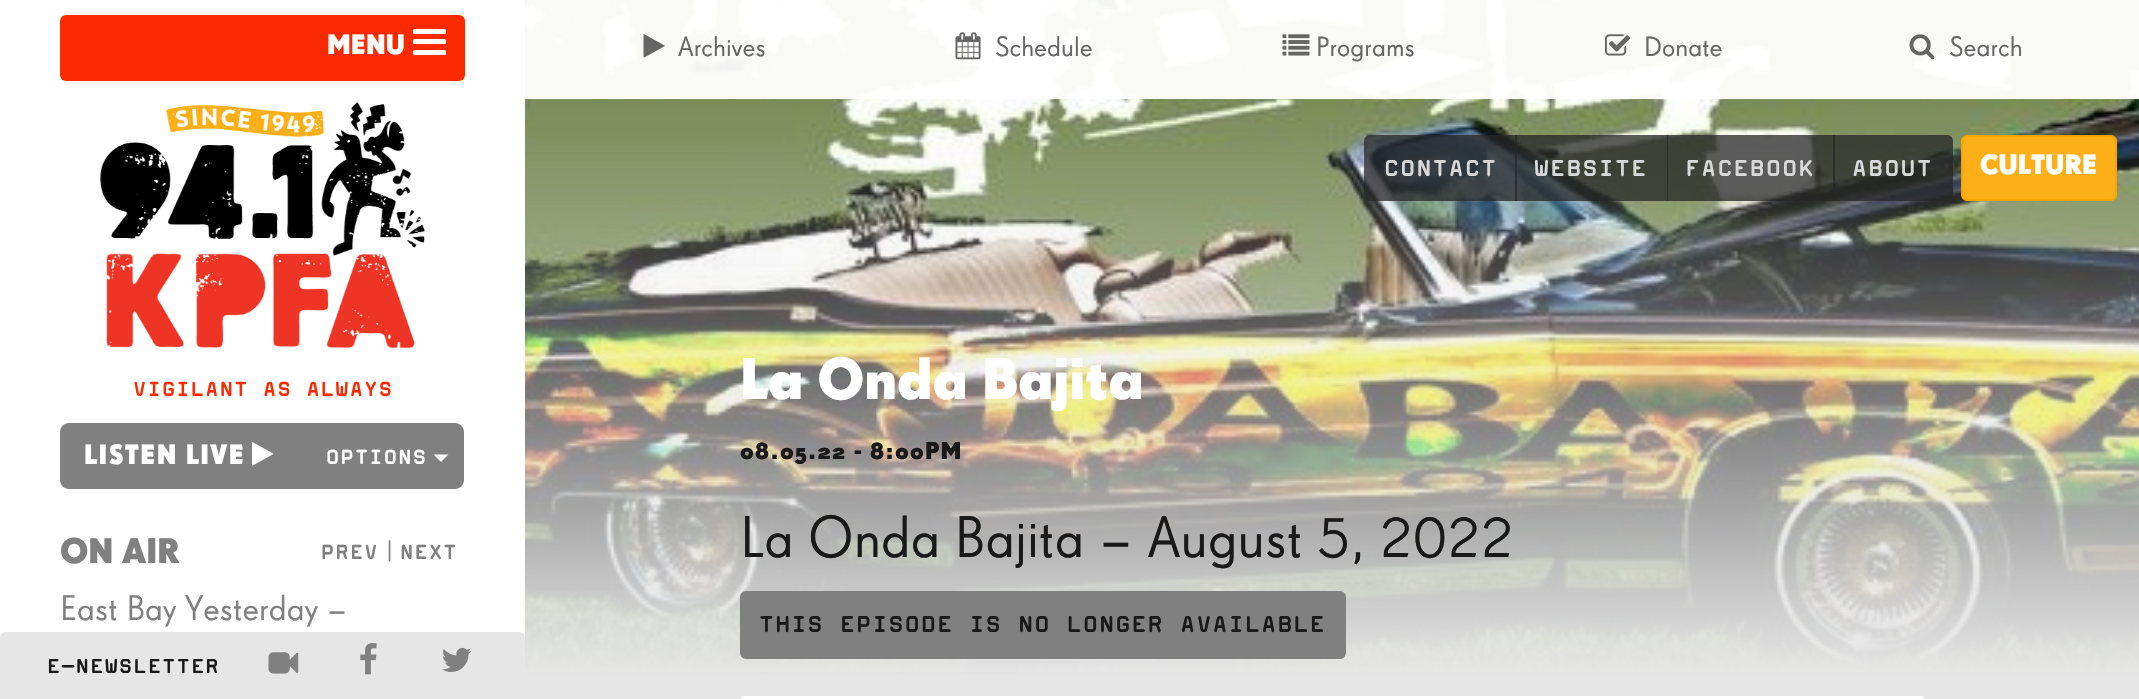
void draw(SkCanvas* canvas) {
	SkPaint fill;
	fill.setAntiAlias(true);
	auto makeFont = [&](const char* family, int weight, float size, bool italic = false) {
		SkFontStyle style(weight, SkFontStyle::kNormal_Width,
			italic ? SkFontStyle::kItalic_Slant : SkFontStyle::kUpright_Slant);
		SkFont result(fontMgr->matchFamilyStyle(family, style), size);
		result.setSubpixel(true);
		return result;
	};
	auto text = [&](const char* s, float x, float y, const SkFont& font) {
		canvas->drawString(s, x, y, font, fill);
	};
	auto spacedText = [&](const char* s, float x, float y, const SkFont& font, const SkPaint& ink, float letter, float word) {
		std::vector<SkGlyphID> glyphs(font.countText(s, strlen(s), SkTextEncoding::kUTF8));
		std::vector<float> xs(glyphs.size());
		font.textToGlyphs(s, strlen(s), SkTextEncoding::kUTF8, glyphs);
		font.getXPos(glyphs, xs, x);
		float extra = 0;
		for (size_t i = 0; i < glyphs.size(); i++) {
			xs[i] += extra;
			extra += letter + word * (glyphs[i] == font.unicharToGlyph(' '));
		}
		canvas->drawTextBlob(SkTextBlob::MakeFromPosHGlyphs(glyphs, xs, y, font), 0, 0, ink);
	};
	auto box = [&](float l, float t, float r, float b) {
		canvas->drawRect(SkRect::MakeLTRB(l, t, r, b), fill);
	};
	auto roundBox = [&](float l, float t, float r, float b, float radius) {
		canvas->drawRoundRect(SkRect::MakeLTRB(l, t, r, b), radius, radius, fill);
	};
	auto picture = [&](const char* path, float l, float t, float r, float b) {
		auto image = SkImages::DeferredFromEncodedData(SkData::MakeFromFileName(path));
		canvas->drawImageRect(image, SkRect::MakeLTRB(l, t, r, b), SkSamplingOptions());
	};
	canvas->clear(0xFFE6E6E6);
	fill.setColor(0xFFFFFFFF);
	box(0, 0, 525, 638);
	fill.setColor(0xFFFC2A00);
	roundBox(60, 15, 465, 81, 6);
	fill.setColor(0xFFFFFFFF);
	roundBox(413, 29, 446, 34, 1.5f);
	roundBox(413, 39, 446, 44, 1.5f);
	roundBox(413, 50, 446, 55, 1.5f);
	picture("image0.png", 100, 102, 425, 349);
	fill.setColor(0xFF808080);
	canvas->drawPath(SkPathBuilder().moveTo(69, 423).lineTo(303, 423).lineTo(303, 489).lineTo(69, 489).cubicTo(64, 489, 60, 485, 60, 480).lineTo(60, 432).cubicTo(60, 427, 64, 423, 69, 423).close().detach(), fill);
	picture("image1.png", 252, 442, 274, 466);
	canvas->drawPath(SkPathBuilder().moveTo(302, 423).lineTo(455, 423).cubicTo(460, 423, 464, 427, 464, 432).lineTo(464, 480).cubicTo(464, 485, 460, 489, 455, 489).lineTo(302, 489).close().detach(), fill);
	fill.setColor(0xFFFFFFFF);
	canvas->drawPath(SkPathBuilder().moveTo(433.5f, 454.5f).lineTo(448.5f, 454.5f).lineTo(441, 462).close().detach(), fill);
	fill.setColor(0xFFE6E6E6);
	canvas->drawPath(SkPathBuilder().moveTo(6, 632).lineTo(519, 632).cubicTo(522.5f, 632, 525, 634.5f, 525, 638).lineTo(525, 699).lineTo(0, 699).lineTo(0, 638).cubicTo(0, 634.5f, 2.5f, 632, 6, 632).close().detach(), fill);
	picture("image2.png", 268, 652, 299, 674);
	picture("image3.png", 360, 643, 377, 675);
	picture("image4.png", 442, 647, 472, 672);
	picture("image5.png", 525, 0, 2139, 675);
	fill.setColor(0xF2FFFFFF);
	box(525, 0, 2139, 99);
	picture("image6.png", 643, 34, 665, 58);
	picture("image7.png", 955, 32, 981, 60);
	picture("image8.png", 1282, 34, 1310, 56);
	picture("image9.png", 1605, 34, 1630, 56);
	picture("image10.png", 1909, 34, 1935, 60);
	fill.setColor(0xBF262626);
	canvas->drawPath(SkPathBuilder().moveTo(1370, 135).lineTo(1517, 135).lineTo(1517, 201).lineTo(1370, 201).cubicTo(1366.5f, 201, 1364, 198.5f, 1364, 195).lineTo(1364, 141).cubicTo(1364, 137.5f, 1366.5f, 135, 1370, 135).close().detach(), fill);
	box(1515, 135, 1668, 201);
	box(1667, 135, 1835, 201);
	canvas->drawPath(SkPathBuilder().moveTo(1833, 135).lineTo(1947, 135).cubicTo(1950.5f, 135, 1953, 137.5f, 1953, 141).lineTo(1953, 195).cubicTo(1953, 198.5f, 1950.5f, 201, 1947, 201).lineTo(1833, 201).close().detach(), fill);
	fill.setColor(0xFFFCAF17);
	canvas->drawRoundRect(SkRect::MakeLTRB(1962, 136, 2116, 200), 5, 5, fill);
	fill.setStyle(SkPaint::kStroke_Style);
	fill.setStrokeWidth(2);
	fill.setColor(0xFFF6A503);
	canvas->drawRoundRect(SkRect::MakeLTRB(1962, 136, 2116, 200), 5, 5, fill);
	fill.setStyle(SkPaint::kFill_Style);
	fill.setColor(0xFF808080);
	canvas->drawRoundRect(SkRect::MakeLTRB(741, 592, 1345, 658), 5, 5, fill);
	fill.setStyle(SkPaint::kStroke_Style);
	canvas->drawRoundRect(SkRect::MakeLTRB(741, 592, 1345, 658), 5, 5, fill);
	fill.setStyle(SkPaint::kFill_Style);
	fill.setColor(0xFFFFFFFF);
	roundBox(740, 696, 1925, 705, 6);
	auto font1 = makeFont("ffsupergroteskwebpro", 700, 27);
	text("MENU", 327, 54, font1);
	auto font2 = makeFont("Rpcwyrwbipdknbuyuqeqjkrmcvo", 700, 24);
	fill.setColor(0xFFFC2A00);
	spacedText("VIGILANT AS ALWAYS", 133, 396, font2, fill, 1.25f, 0);
	fill.setColor(0xFFFFFFFF);
	spacedText("LISTEN LIVE", 84, 464, font1, fill, 1.35f, 0);
	spacedText("OPTIONS", 326, 464, font2, fill, 1.25f, 0);
	auto font3 = makeFont("ffsupergroteskwebpro", 700, 34.5f);
	fill.setColor(0xFF808080);
	text("ON AIR", 60, 563, font3);
	spacedText("PREV", 321, 559, font2, fill, 1.25f, 0);
	auto font4 = makeFont("ffsupergroteskwebpro", 400, 24);
	text("|", 385, 559, font4);
	spacedText("NEXT", 400, 559, font2, fill, 1.25f, 0);
	auto font5 = makeFont("ffsupergroteskwebpro", 400, 34.5f);
	text("East Bay Yesterday –", 60, 620, font5);
	auto font6 = makeFont("Rpcwyrwbipdknbuyuqeqjkrmcvo", 700, 23.75f);
	fill.setColor(0xFF191919);
	spacedText("E-NEWSLETTER", 47, 673, font6, fill, 1.35f, 0);
	auto font7 = makeFont("ffsupergroteskwebpro", 400, 27);
	fill.setColor(0xFF666666);
	text("Archives", 678, 56, font7);
	text("Schedule", 995, 56, font7);
	text("Programs", 1316, 56, font7);
	text("Donate", 1644, 56, font7);
	text("Search", 1949, 56, font7);
	auto font8 = makeFont("Rpcwyrwbipdknbuyuqeqjkrmcvo", 700, 27);
	fill.setColor(0xFFD9D9D9);
	spacedText("CONTACT", 1384, 176, font8, fill, 1.35f, 0);
	spacedText("WEBSITE", 1534, 176, font8, fill, 1.35f, 0);
	spacedText("FACEBOOK", 1685, 176, font8, fill, 1.35f, 0);
	spacedText("ABOUT", 1852, 176, font8, fill, 1.35f, 0);
	fill.setColor(0xFFFFFFFF);
	text("CULTURE", 1980, 174, font1);
	auto font9 = makeFont("ffsupergroteskwebpro", 700, 57);
	text("La Onda Bajita", 740, 399, font9);
	auto font10 = makeFont("ffsupergroteskwebpro", 700, 23.75f);
	fill.setColor(0xFF191919);
	spacedText("08.05.22 - 8:00PM", 740, 459, font10, fill, 1.2f, 0);
	auto font11 = makeFont("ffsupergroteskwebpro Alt", 400, 57);
	text("La Onda Bajita – August 5, 2022", 740, 557, font11);
	spacedText("THIS EPISODE IS NO LONGER AVAILABLE", 759, 632, font8, fill, 1.35f, 0);
}
